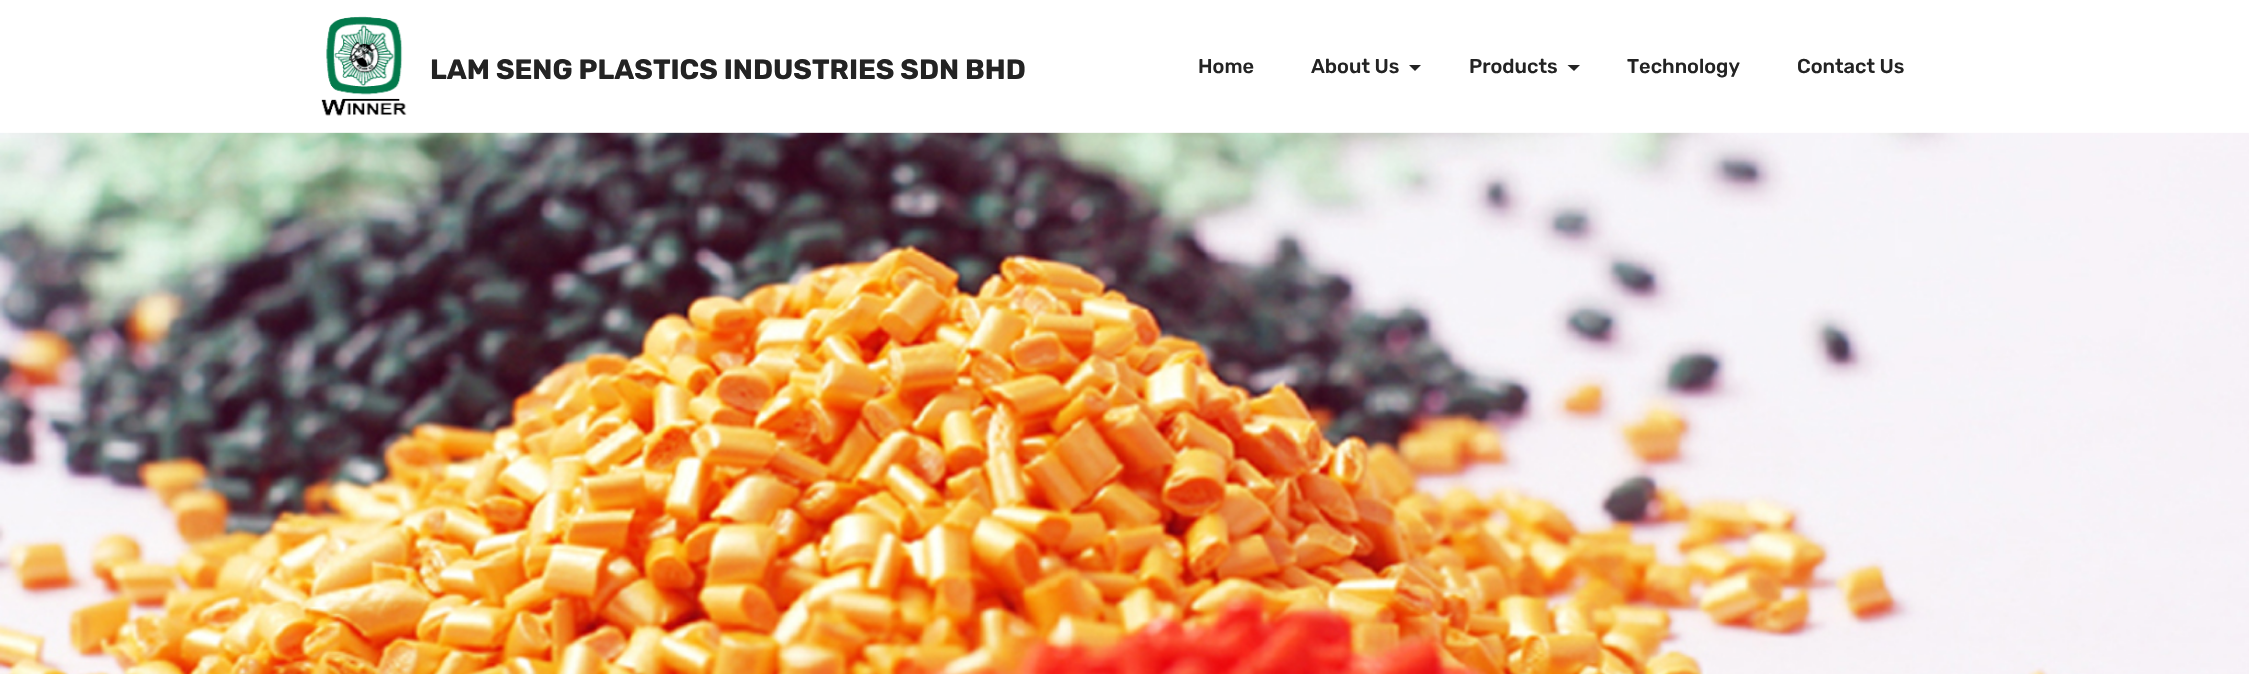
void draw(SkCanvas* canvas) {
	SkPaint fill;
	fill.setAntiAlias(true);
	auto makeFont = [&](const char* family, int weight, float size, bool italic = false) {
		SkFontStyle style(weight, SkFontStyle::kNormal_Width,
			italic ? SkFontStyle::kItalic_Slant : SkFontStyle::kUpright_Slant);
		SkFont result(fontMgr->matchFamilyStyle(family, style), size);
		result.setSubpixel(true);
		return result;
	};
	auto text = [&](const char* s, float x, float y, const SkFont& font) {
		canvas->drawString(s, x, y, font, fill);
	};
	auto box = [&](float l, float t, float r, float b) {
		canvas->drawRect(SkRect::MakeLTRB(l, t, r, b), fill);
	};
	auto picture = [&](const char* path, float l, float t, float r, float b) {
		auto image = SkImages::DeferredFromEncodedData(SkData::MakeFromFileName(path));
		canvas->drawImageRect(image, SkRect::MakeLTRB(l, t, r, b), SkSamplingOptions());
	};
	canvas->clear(0xFFFFFFFF);
	picture("image1.png", 0, 132, 2249, 674);
	fill.setColor(0xB3FFFFFF);
	box(0, 132, 2249, 133);
	picture("image0.png", 321, 16, 407, 116);
	fill.setColor(0xFF232323);
	canvas->drawPath(SkPathBuilder().moveTo(1409, 65).lineTo(1421, 65).lineTo(1415, 71).close().detach(), fill);
	canvas->drawPath(SkPathBuilder().moveTo(1567.5f, 65).lineTo(1580, 65).lineTo(1574, 71).close().detach(), fill);
	auto font1 = makeFont("Rubik", 700, 28);
	text("LAM SENG PLASTICS INDUSTRIES SDN BHD", 430, 79, font1);
	auto font2 = makeFont("Rubik", 500, 20);
	text("Home", 1198, 73, font2);
	text("About Us", 1311, 73, font2);
	text("Products", 1469, 73, font2);
	text("Technology", 1627, 73, font2);
	text("Contact Us", 1797, 73, font2);
}
